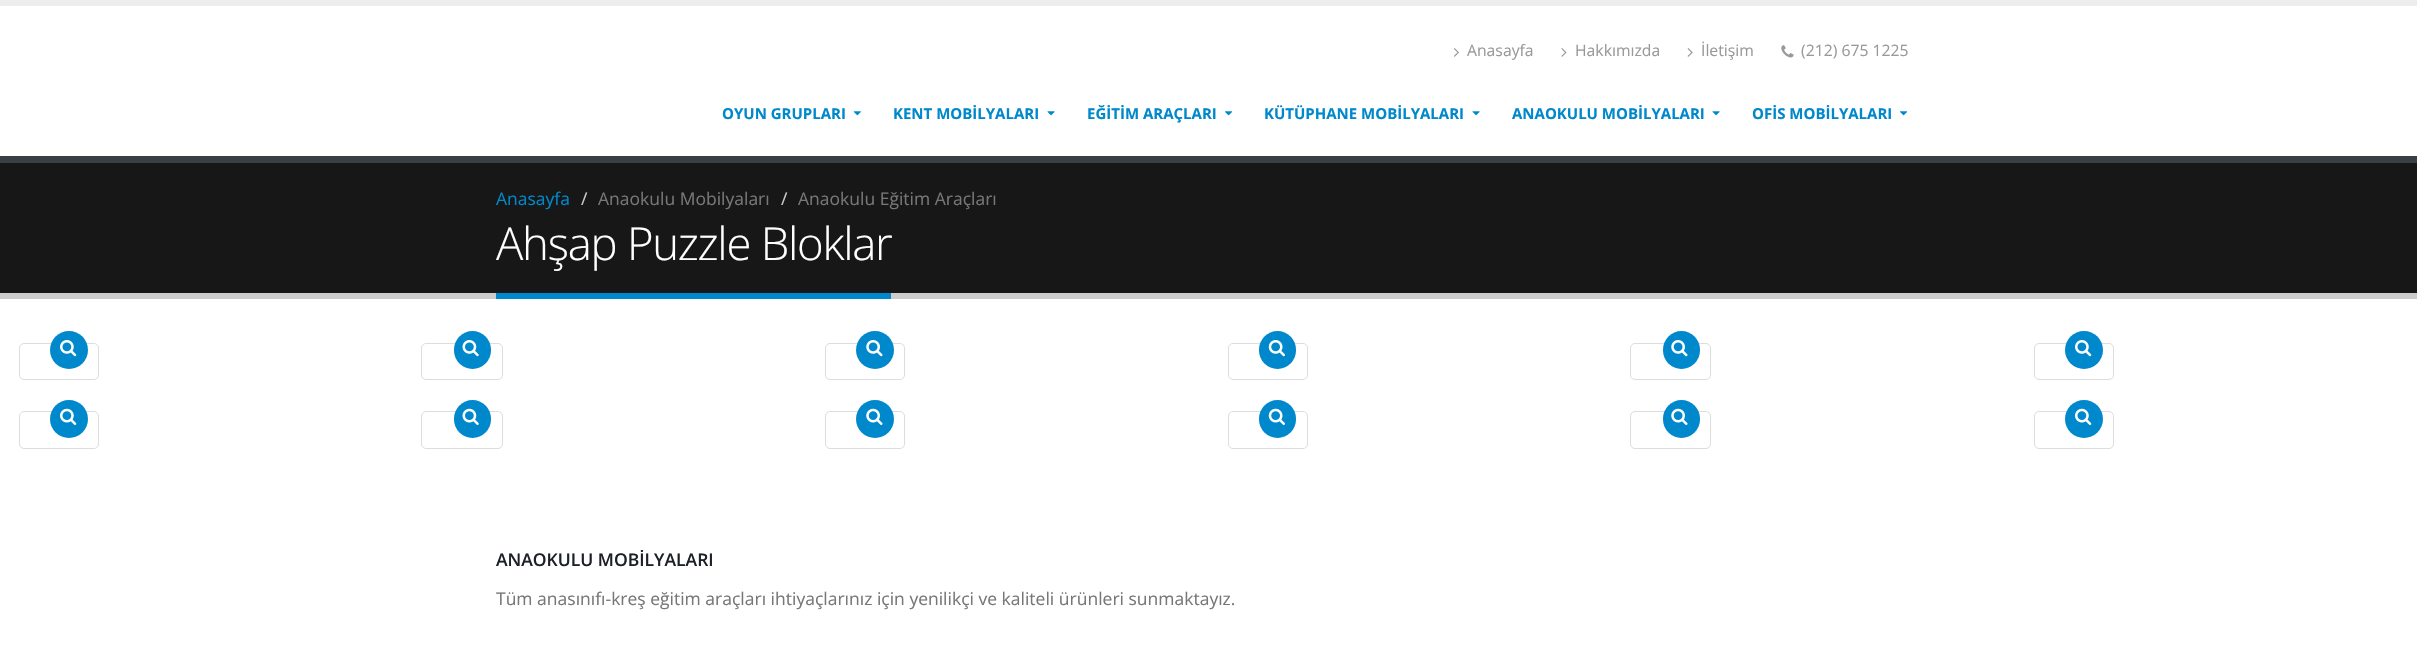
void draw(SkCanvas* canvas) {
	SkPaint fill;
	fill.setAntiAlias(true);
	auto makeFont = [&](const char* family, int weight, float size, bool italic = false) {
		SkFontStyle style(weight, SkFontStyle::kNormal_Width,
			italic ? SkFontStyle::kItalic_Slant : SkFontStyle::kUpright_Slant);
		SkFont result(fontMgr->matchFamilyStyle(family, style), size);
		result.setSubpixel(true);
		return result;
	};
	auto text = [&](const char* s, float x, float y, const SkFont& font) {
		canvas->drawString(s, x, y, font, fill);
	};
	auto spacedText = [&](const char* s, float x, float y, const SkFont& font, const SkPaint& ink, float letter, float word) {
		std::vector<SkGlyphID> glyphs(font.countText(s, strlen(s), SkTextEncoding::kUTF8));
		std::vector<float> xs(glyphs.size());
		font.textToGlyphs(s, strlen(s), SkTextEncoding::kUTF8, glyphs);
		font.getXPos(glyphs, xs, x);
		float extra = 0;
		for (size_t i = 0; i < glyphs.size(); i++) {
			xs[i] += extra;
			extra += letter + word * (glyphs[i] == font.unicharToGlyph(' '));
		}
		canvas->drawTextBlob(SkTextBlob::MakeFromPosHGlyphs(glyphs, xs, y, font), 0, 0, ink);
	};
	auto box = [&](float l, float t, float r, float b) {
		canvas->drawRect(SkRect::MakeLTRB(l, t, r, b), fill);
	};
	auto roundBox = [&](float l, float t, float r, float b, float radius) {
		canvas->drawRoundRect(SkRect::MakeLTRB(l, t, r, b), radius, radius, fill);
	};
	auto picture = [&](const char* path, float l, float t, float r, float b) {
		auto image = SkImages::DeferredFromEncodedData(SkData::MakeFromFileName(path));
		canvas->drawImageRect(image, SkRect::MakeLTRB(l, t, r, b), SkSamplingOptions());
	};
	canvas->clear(0xFFFFFFFF);
	fill.setColor(0xFFEDEDED);
	box(0, 0, 2417, 6);
	picture("image0.png", 1454, 48, 1459, 57);
	picture("image1.png", 1561, 48, 1567, 57);
	picture("image2.png", 1687, 48, 1693, 57);
	picture("image3.png", 1781, 45, 1794, 58);
	picture("image4.png", 853, 111, 861, 116);
	picture("image5.png", 1047, 111, 1055, 116);
	picture("image6.png", 1225, 111, 1233, 116);
	picture("image5.png", 1472, 111, 1480, 116);
	picture("image5.png", 1712, 111, 1720, 116);
	picture("image6.png", 1900, 111, 1908, 116);
	fill.setColor(0xFF171717);
	box(0, 163, 2417, 293);
	fill.setColor(0xFF384045);
	box(0, 156, 2417, 163);
	fill.setColor(0xFFCCCCCC);
	box(0, 293, 2417, 299);
	fill.setColor(0xFF0088CC);
	box(496, 293, 891, 299);
	fill.setStyle(SkPaint::kStroke_Style);
	fill.setStrokeWidth(1);
	fill.setColor(0xFFDDDDDD);
	canvas->drawRoundRect(SkRect::MakeLTRB(19.5f, 343.5f, 98.5f, 379.5f), 4.5f, 4.5f, fill);
	fill.setStyle(SkPaint::kFill_Style);
	fill.setColor(0xFF0088CC);
	canvas->drawCircle(69, 350, 19, fill);
	picture("image7.png", 60, 340, 77, 357);
	fill.setStyle(SkPaint::kStroke_Style);
	fill.setColor(0xFFDDDDDD);
	canvas->drawRoundRect(SkRect::MakeLTRB(421.5f, 343.5f, 502.5f, 379.5f), 4.5f, 4.5f, fill);
	fill.setStyle(SkPaint::kFill_Style);
	fill.setColor(0xFF0088CC);
	roundBox(454, 331, 491, 369, 18.5f);
	picture("image8.png", 462, 340, 479, 357);
	fill.setStyle(SkPaint::kStroke_Style);
	fill.setColor(0xFFDDDDDD);
	canvas->drawRoundRect(SkRect::MakeLTRB(825.5f, 343.5f, 904.5f, 379.5f), 4.5f, 4.5f, fill);
	fill.setStyle(SkPaint::kFill_Style);
	fill.setColor(0xFF0088CC);
	canvas->drawCircle(875, 350, 19, fill);
	picture("image9.png", 866, 340, 883, 357);
	fill.setStyle(SkPaint::kStroke_Style);
	fill.setColor(0xFFDDDDDD);
	canvas->drawRoundRect(SkRect::MakeLTRB(1228.5f, 343.5f, 1307.5f, 379.5f), 4.5f, 4.5f, fill);
	fill.setStyle(SkPaint::kFill_Style);
	fill.setColor(0xFF0088CC);
	roundBox(1259, 331, 1296, 369, 18.5f);
	picture("image10.png", 1268, 340, 1285, 357);
	fill.setStyle(SkPaint::kStroke_Style);
	fill.setColor(0xFFDDDDDD);
	canvas->drawRoundRect(SkRect::MakeLTRB(1630.5f, 343.5f, 1710.5f, 379.5f), 4.5f, 4.5f, fill);
	fill.setStyle(SkPaint::kFill_Style);
	fill.setColor(0xFF0088CC);
	roundBox(1663, 331, 1700, 369, 18.5f);
	picture("image9.png", 1671, 340, 1688, 357);
	fill.setStyle(SkPaint::kStroke_Style);
	fill.setColor(0xFFDDDDDD);
	canvas->drawRoundRect(SkRect::MakeLTRB(2034.5f, 343.5f, 2113.5f, 379.5f), 4.5f, 4.5f, fill);
	fill.setStyle(SkPaint::kFill_Style);
	fill.setColor(0xFF0088CC);
	canvas->drawCircle(2084, 350, 19, fill);
	picture("image7.png", 2075, 340, 2092, 357);
	fill.setStyle(SkPaint::kStroke_Style);
	fill.setColor(0xFFDDDDDD);
	canvas->drawRoundRect(SkRect::MakeLTRB(19.5f, 411.5f, 98.5f, 448.5f), 4.5f, 4.5f, fill);
	fill.setStyle(SkPaint::kFill_Style);
	fill.setColor(0xFF0088CC);
	canvas->drawCircle(69, 419, 19, fill);
	picture("image11.png", 60, 408, 77, 425);
	fill.setStyle(SkPaint::kStroke_Style);
	fill.setColor(0xFFDDDDDD);
	canvas->drawRoundRect(SkRect::MakeLTRB(421.5f, 411.5f, 502.5f, 448.5f), 4.5f, 4.5f, fill);
	fill.setStyle(SkPaint::kFill_Style);
	fill.setColor(0xFF0088CC);
	roundBox(454, 400, 491, 438, 18.5f);
	picture("image12.png", 462, 408, 479, 425);
	fill.setStyle(SkPaint::kStroke_Style);
	fill.setColor(0xFFDDDDDD);
	canvas->drawRoundRect(SkRect::MakeLTRB(825.5f, 411.5f, 904.5f, 448.5f), 4.5f, 4.5f, fill);
	fill.setStyle(SkPaint::kFill_Style);
	fill.setColor(0xFF0088CC);
	canvas->drawCircle(875, 419, 19, fill);
	picture("image13.png", 866, 408, 883, 425);
	fill.setStyle(SkPaint::kStroke_Style);
	fill.setColor(0xFFDDDDDD);
	canvas->drawRoundRect(SkRect::MakeLTRB(1228.5f, 411.5f, 1307.5f, 448.5f), 4.5f, 4.5f, fill);
	fill.setStyle(SkPaint::kFill_Style);
	fill.setColor(0xFF0088CC);
	roundBox(1259, 400, 1296, 438, 18.5f);
	picture("image14.png", 1268, 408, 1285, 425);
	fill.setStyle(SkPaint::kStroke_Style);
	fill.setColor(0xFFDDDDDD);
	canvas->drawRoundRect(SkRect::MakeLTRB(1630.5f, 411.5f, 1710.5f, 448.5f), 4.5f, 4.5f, fill);
	fill.setStyle(SkPaint::kFill_Style);
	fill.setColor(0xFF0088CC);
	roundBox(1663, 400, 1700, 438, 18.5f);
	picture("image13.png", 1671, 408, 1688, 425);
	fill.setStyle(SkPaint::kStroke_Style);
	fill.setColor(0xFFDDDDDD);
	canvas->drawRoundRect(SkRect::MakeLTRB(2034.5f, 411.5f, 2113.5f, 448.5f), 4.5f, 4.5f, fill);
	fill.setStyle(SkPaint::kFill_Style);
	fill.setColor(0xFF0088CC);
	canvas->drawCircle(2084, 419, 19, fill);
	picture("image11.png", 2075, 408, 2092, 425);
	auto font1 = makeFont("Open Sans", 400, 15.75f);
	fill.setColor(0xFF999999);
	text("Anasayfa", 1467, 56, font1);
	text("Hakkımızda", 1575, 56, font1);
	text("İletişim", 1701, 56, font1);
	text("(212) 675 1225", 1801, 56, font1);
	auto font2 = makeFont("Open Sans", 700, 15);
	fill.setColor(0xFF0088CC);
	text("OYUN GRUPLARI", 722, 119, font2);
	text("KENT MOBİLYALARI", 893, 119, font2);
	text("EĞİTİM ARAÇLARI", 1087, 119, font2);
	text("KÜTÜPHANE MOBİLYALARI", 1264, 119, font2);
	text("ANAOKULU MOBİLYALARI", 1512, 119, font2);
	text("OFİS MOBİLYALARI", 1752, 119, font2);
	auto font3 = makeFont("Open Sans", 400, 17.5f);
	text("Anasayfa", 496, 205, font3);
	fill.setColor(0xFFCCCCCC);
	text("/", 581, 205, font3);
	fill.setColor(0xFF777777);
	text("Anaokulu Mobilyaları", 598, 205, font3);
	fill.setColor(0xFFCCCCCC);
	text("/", 781, 205, font3);
	fill.setColor(0xFF777777);
	text("Anaokulu Eğitim Araçları", 798, 205, font3);
	auto font4 = makeFont("Open Sans", 300, 45.5f);
	fill.setColor(0xFFFFFFFF);
	spacedText("Ahşap Puzzle Bloklar", 496, 260, font4, fill, -1.25f, 0);
	auto font5 = makeFont("Open Sans", 600, 17.5f);
	fill.setColor(0xFF1D2127);
	text("ANAOKULU MOBİLYALARI", 496, 566, font5);
	fill.setColor(0xFF777777);
	text("Tüm anasınıfı-kreş eğitim araçları ihtiyaçlarınız için yenilikçi ve kaliteli ürünleri sunmaktayız.", 496, 605, font3);
}
